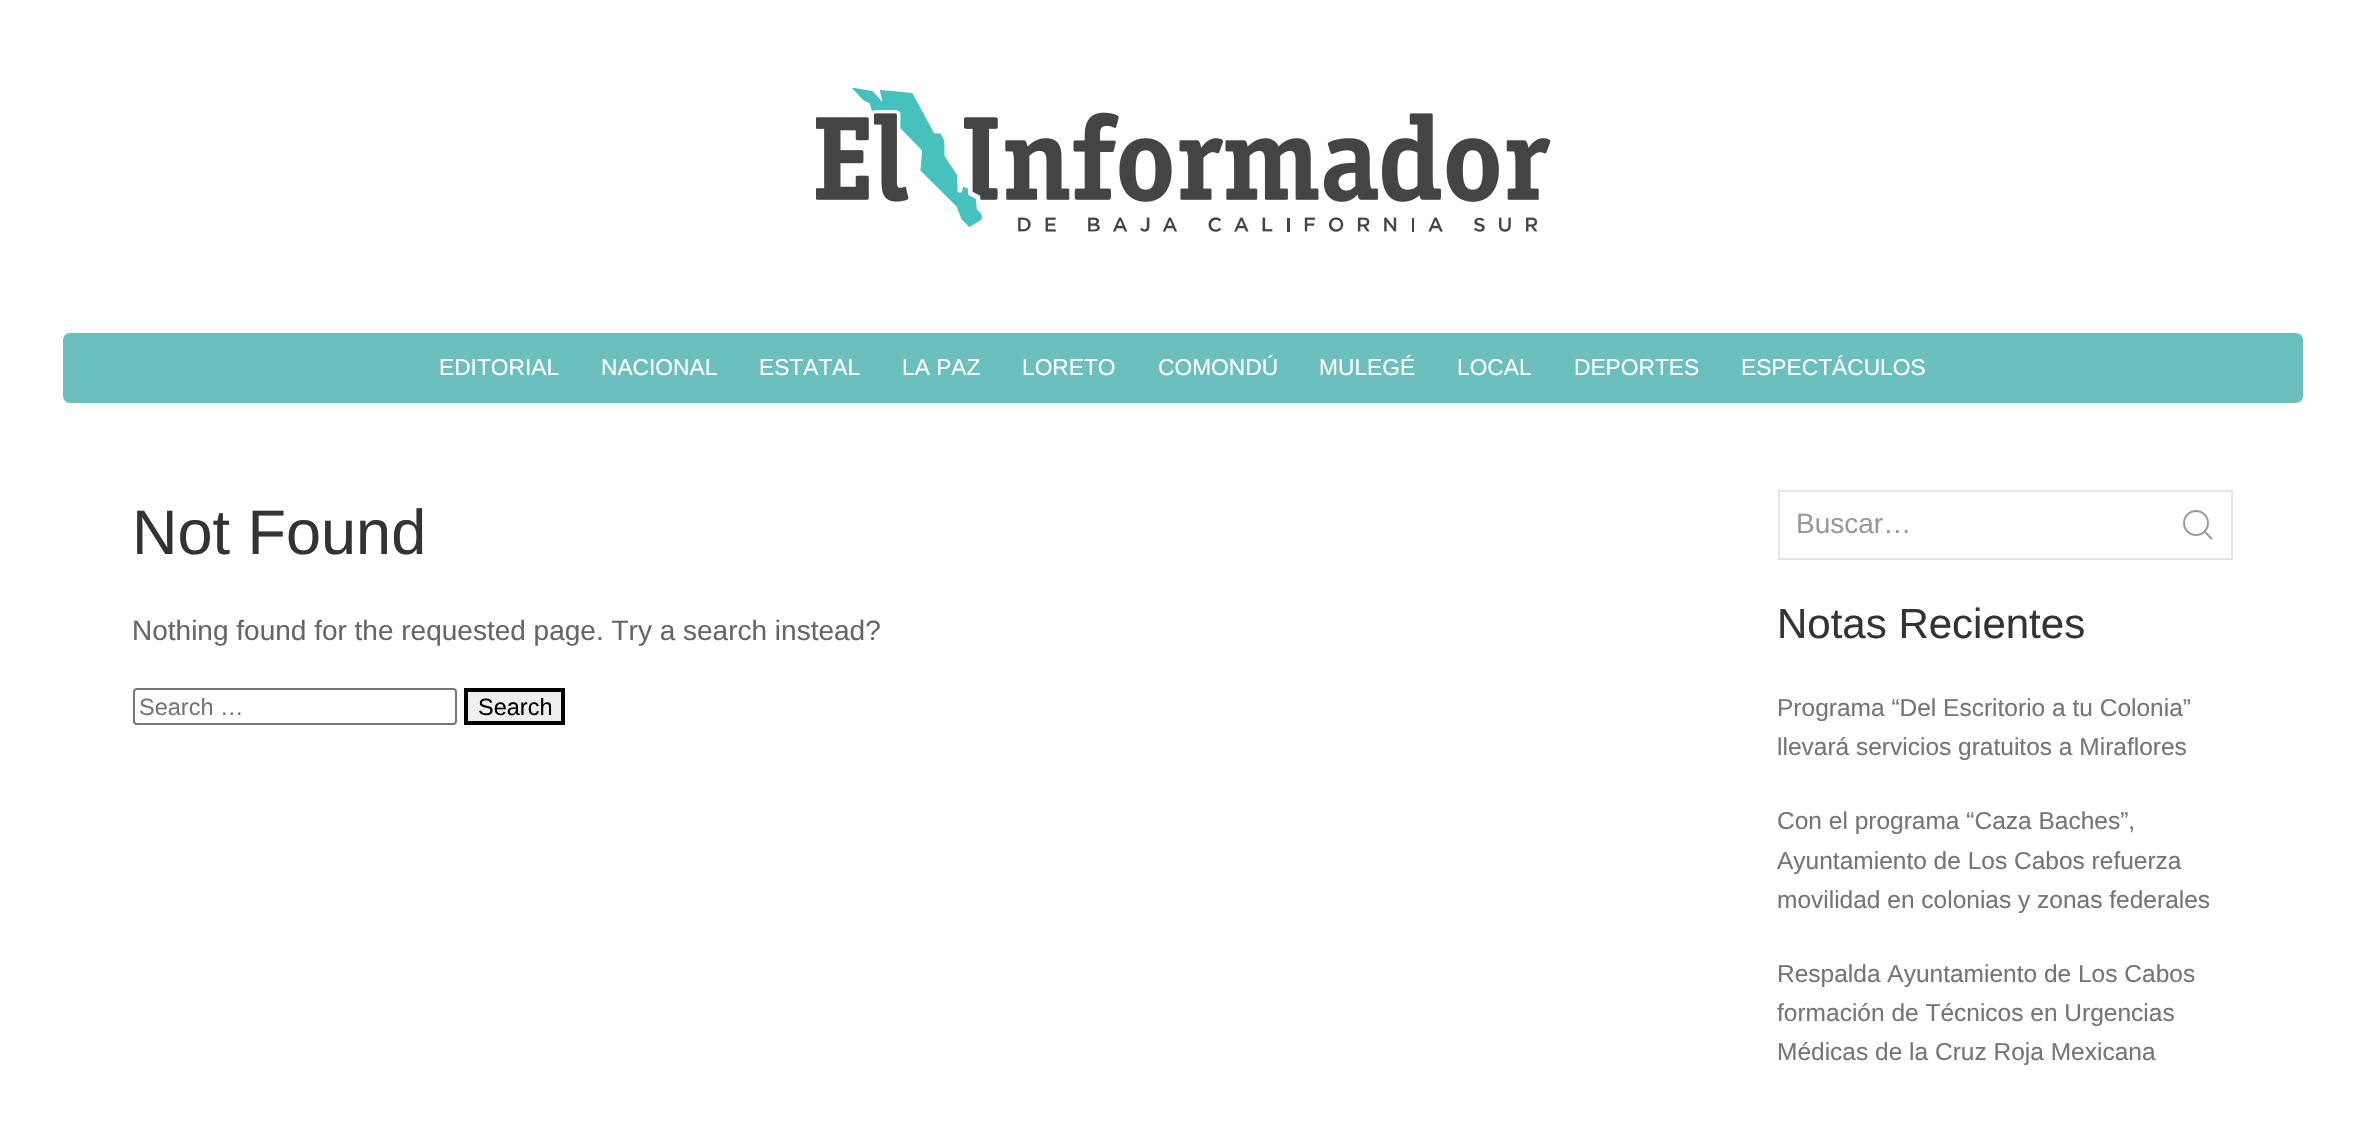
void draw(SkCanvas* canvas) {
	SkPaint fill;
	fill.setAntiAlias(true);
	auto makeFont = [&](const char* family, int weight, float size, bool italic = false) {
		SkFontStyle style(weight, SkFontStyle::kNormal_Width,
			italic ? SkFontStyle::kItalic_Slant : SkFontStyle::kUpright_Slant);
		SkFont result(fontMgr->matchFamilyStyle(family, style), size);
		result.setSubpixel(true);
		return result;
	};
	auto text = [&](const char* s, float x, float y, const SkFont& font) {
		canvas->drawString(s, x, y, font, fill);
	};
	auto roundBox = [&](float l, float t, float r, float b, float radius) {
		canvas->drawRoundRect(SkRect::MakeLTRB(l, t, r, b), radius, radius, fill);
	};
	auto picture = [&](const char* path, float l, float t, float r, float b) {
		auto image = SkImages::DeferredFromEncodedData(SkData::MakeFromFileName(path));
		canvas->drawImageRect(image, SkRect::MakeLTRB(l, t, r, b), SkSamplingOptions());
	};
	canvas->clear(0xFFFFFFFF);
	picture("image0.png", 816, 88, 1551, 232);
	fill.setColor(0xFF6BBFBD);
	roundBox(63, 333, 2303, 403, 7);
	fill.setStyle(SkPaint::kStroke_Style);
	fill.setStrokeWidth(2);
	fill.setColor(0xFF767676);
	canvas->drawRoundRect(SkRect::MakeLTRB(134, 689, 456, 724), 3, 3, fill);
	fill.setStyle(SkPaint::kFill_Style);
	fill.setColor(0xFFEFEFEF);
	canvas->drawRect(SkRect::MakeLTRB(466, 690, 563, 723), fill);
	fill.setStyle(SkPaint::kStroke_Style);
	fill.setStrokeWidth(4);
	fill.setColor(0xFF000000);
	canvas->drawRect(SkRect::MakeLTRB(466, 690, 563, 723), fill);
	fill.setStrokeWidth(2);
	fill.setColor(0xFFE5E5E5);
	canvas->drawRect(SkRect::MakeLTRB(1779, 491, 2232, 559), fill);
	fill.setStrokeWidth(1.9f);
	fill.setColor(0xFF999999);
	canvas->drawCircle(2196, 523, 12, fill);
	canvas->drawPath(SkPathBuilder().moveTo(2205, 532).lineTo(2212, 539).close().detach(), fill);
	auto font1 = makeFont("Liberation Sans", 400, 22.75f);
	fill.setStyle(SkPaint::kFill_Style);
	fill.setColor(0xFFFFFFFF);
	text("EDITORIAL", 439, 375, font1);
	text("NACIONAL", 601, 375, font1);
	text("ESTATAL", 759, 375, font1);
	text("LA PAZ", 902, 375, font1);
	text("LORETO", 1022, 375, font1);
	text("COMONDÚ", 1158, 375, font1);
	text("MULEGÉ", 1319, 375, font1);
	text("LOCAL", 1457, 375, font1);
	text("DEPORTES", 1574, 375, font1);
	text("ESPECTÁCULOS", 1741, 375, font1);
	auto font2 = makeFont("Liberation Sans", 400, 63);
	fill.setColor(0xFF333333);
	text("Not Found", 132, 554, font2);
	auto font3 = makeFont("Liberation Sans", 400, 28);
	fill.setColor(0xFF666666);
	text("Nothing found for the requested page. Try a search instead?", 132, 640, font3);
	auto font4 = makeFont("Liberation Sans", 400, 23.5f);
	fill.setColor(0xFF757575);
	text("Search …", 139, 715, font4);
	fill.setColor(0xFF000000);
	text("Search", 478, 715, font4);
	fill.setColor(0xFF999999);
	text("Buscar…", 1796, 533, font3);
	auto font5 = makeFont("Liberation Sans", 400, 42);
	fill.setColor(0xFF333333);
	text("Notas Recientes", 1777, 638, font5);
	auto font6 = makeFont("Liberation Sans", 400, 24.5f);
	fill.setColor(0xFF757575);
	text("Programa “Del Escritorio a tu Colonia”", 1777, 716, font6);
	text("llevará servicios gratuitos a Miraflores", 1777, 755, font6);
	text("Con el programa “Caza Baches”,", 1777, 829, font6);
	text("Ayuntamiento de Los Cabos refuerza", 1777, 869, font6);
	text("movilidad en colonias y zonas federales", 1777, 908, font6);
	text("Respalda Ayuntamiento de Los Cabos", 1777, 982, font6);
	text("formación de Técnicos en Urgencias", 1777, 1021, font6);
	text("Médicas de la Cruz Roja Mexicana", 1777, 1060, font6);
}
